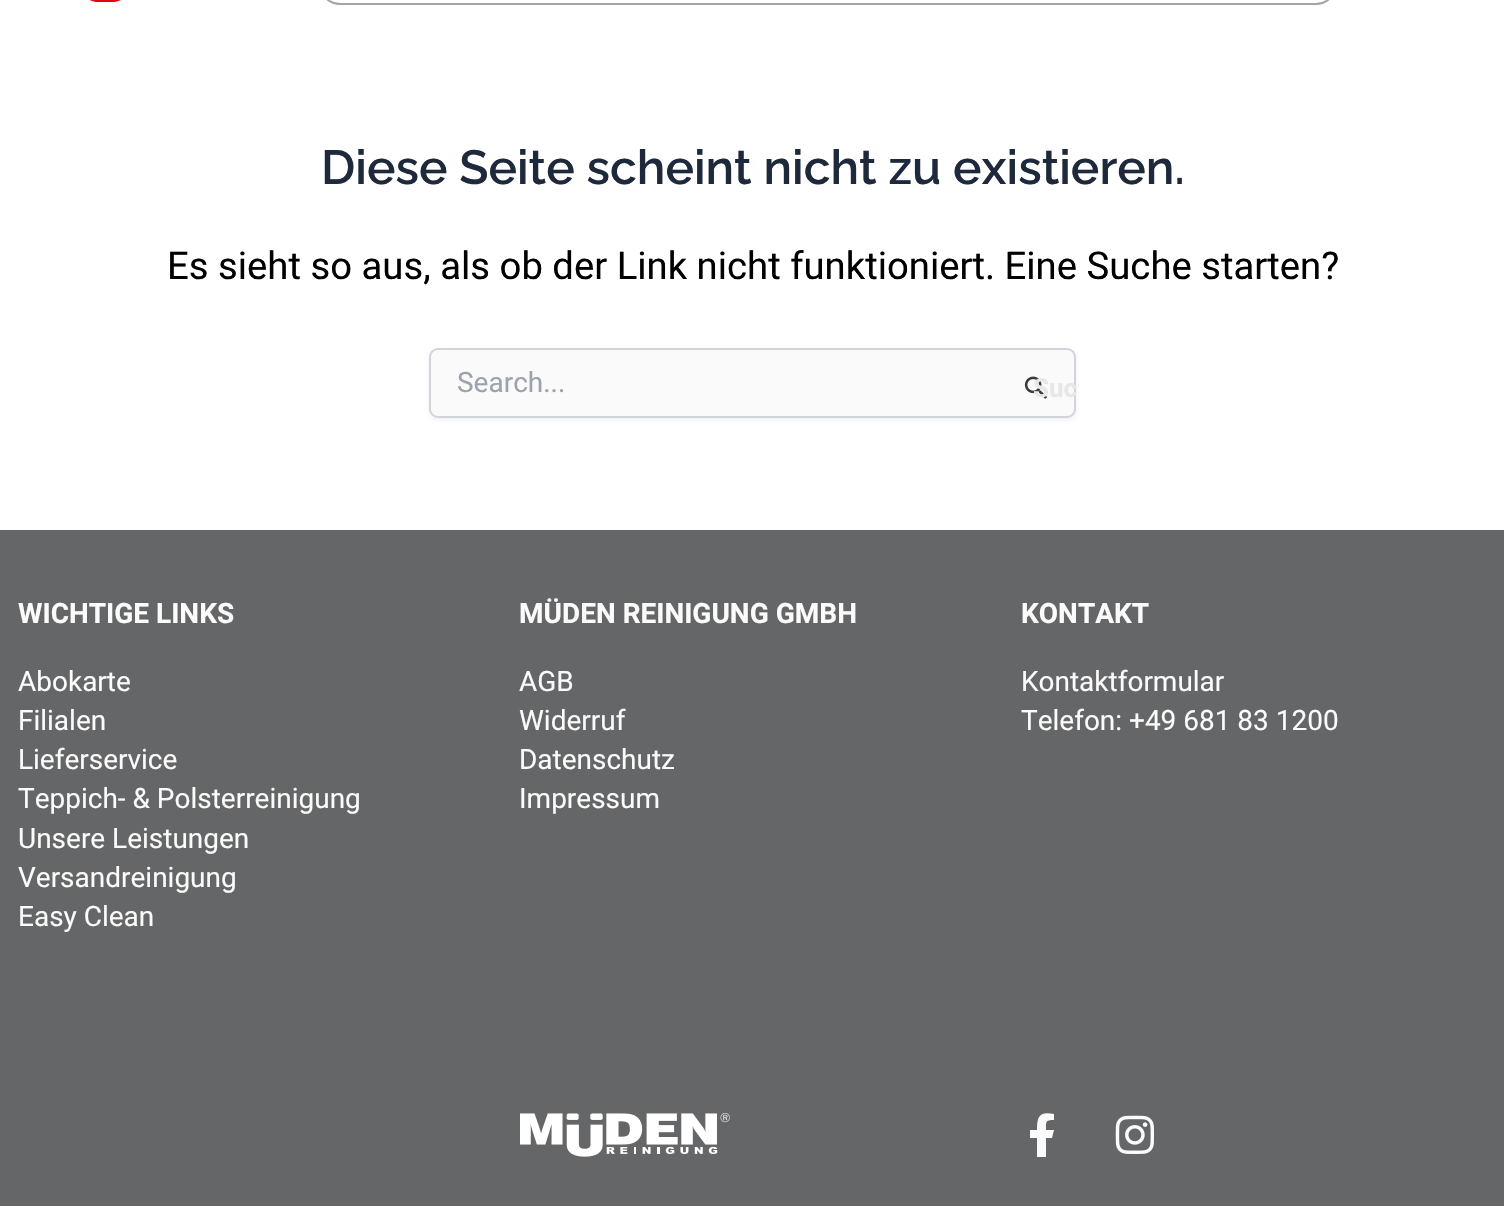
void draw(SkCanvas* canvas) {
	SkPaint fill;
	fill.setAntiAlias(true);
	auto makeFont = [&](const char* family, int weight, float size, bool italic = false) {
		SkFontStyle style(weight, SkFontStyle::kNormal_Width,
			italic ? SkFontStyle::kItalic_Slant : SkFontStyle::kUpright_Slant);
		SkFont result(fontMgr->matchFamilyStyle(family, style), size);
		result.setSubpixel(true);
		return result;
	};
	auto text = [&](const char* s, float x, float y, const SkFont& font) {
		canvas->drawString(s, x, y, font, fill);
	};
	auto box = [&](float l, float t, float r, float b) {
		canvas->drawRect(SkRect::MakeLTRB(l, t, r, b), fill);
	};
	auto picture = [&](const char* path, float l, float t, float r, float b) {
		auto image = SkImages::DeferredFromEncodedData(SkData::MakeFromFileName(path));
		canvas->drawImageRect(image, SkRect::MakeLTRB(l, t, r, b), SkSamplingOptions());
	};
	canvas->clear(0xFFFFFFFF);
	picture("image0.png", 89, 0, 121, 2);
	fill.setStyle(SkPaint::kStroke_Style);
	fill.setStrokeWidth(2);
	fill.setColor(0xFFA4A4A4);
	canvas->drawRoundRect(SkRect::MakeLTRB(320, -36, 1336, 4), 34, 34, fill);
	fill.setStyle(SkPaint::kFill_Style);
	fill.setColor(0x0D000000);
	fill.setMaskFilter(SkMaskFilter::MakeBlur(kNormal_SkBlurStyle, 2));
	canvas->drawRoundRect(SkRect::MakeLTRB(429, 350, 1076, 420), 9, 9, fill);
	fill.setMaskFilter(nullptr);
	fill.setColor(0xFFFAFAFA);
	canvas->drawRoundRect(SkRect::MakeLTRB(430, 349, 1075, 417), 8, 8, fill);
	fill.setStyle(SkPaint::kStroke_Style);
	fill.setColor(0xFFD1D5DB);
	canvas->drawRoundRect(SkRect::MakeLTRB(430, 349, 1075, 417), 8, 8, fill);
	picture("image1.png", 1024, 376, 1047, 399);
	fill.setStyle(SkPaint::kFill_Style);
	fill.setColor(0xFF656667);
	box(0, 530, 1504, 1206);
	picture("image2.png", 520, 1113, 730, 1157);
	fill.setColor(0xFFFBFBFB);
	canvas->drawPath(SkPathBuilder().moveTo(1052, 1138).lineTo(1054, 1130).lineTo(1046, 1130).cubicTo(1046, 1122, 1045, 1120, 1054, 1120).lineTo(1054, 1114).cubicTo(1039, 1111, 1037, 1117, 1037, 1130).lineTo(1030, 1130).lineTo(1030, 1138).lineTo(1037, 1138).lineTo(1037, 1157).lineTo(1046, 1157).lineTo(1046, 1138).close().detach(), fill);
	picture("image3.png", 1115, 1115, 1154, 1154);
	auto font1 = makeFont("Raleway", 600, 47.9f);
	fill.setColor(0xFF1E293B);
	text("Diese Seite scheint nicht zu existieren.", 321, 184, font1);
	auto font2 = makeFont("Roboto", 400, 38.3f);
	fill.setColor(0xFF000000);
	text("Es sieht so aus, als ob der Link nicht funktioniert. Eine Suche starten?", 167, 279, font2);
	auto font3 = makeFont("Roboto", 400, 28);
	fill.setColor(0xFF9CA3AF);
	text("Search...", 457, 392, font3);
	auto font4 = makeFont("Roboto", 700, 26);
	fill.setColor(0xFFE7E7E7);
	text("Suc", 1033, 397, font4);
	auto font5 = makeFont("Roboto", 700, 28);
	fill.setColor(0xFFFBFBFB);
	text("WICHTIGE LINKS", 18, 623, font5);
	text("Abokarte", 18, 691, font3);
	text("Filialen", 18, 730, font3);
	text("Lieferservice", 18, 769, font3);
	text("Teppich- & Polsterreinigung", 18, 808, font3);
	text("Unsere Leistungen", 18, 848, font3);
	text("Versandreinigung", 18, 887, font3);
	text("Easy Clean", 18, 926, font3);
	text("MÜDEN REINIGUNG GMBH", 519, 623, font5);
	text("AGB", 519, 691, font3);
	text("Widerruf", 519, 730, font3);
	text("Datenschutz", 519, 769, font3);
	text("Impressum", 519, 808, font3);
	text("KONTAKT", 1021, 623, font5);
	text("Kontaktformular", 1021, 691, font3);
	text("Telefon: +49 681 83 1200", 1021, 730, font3);
}
